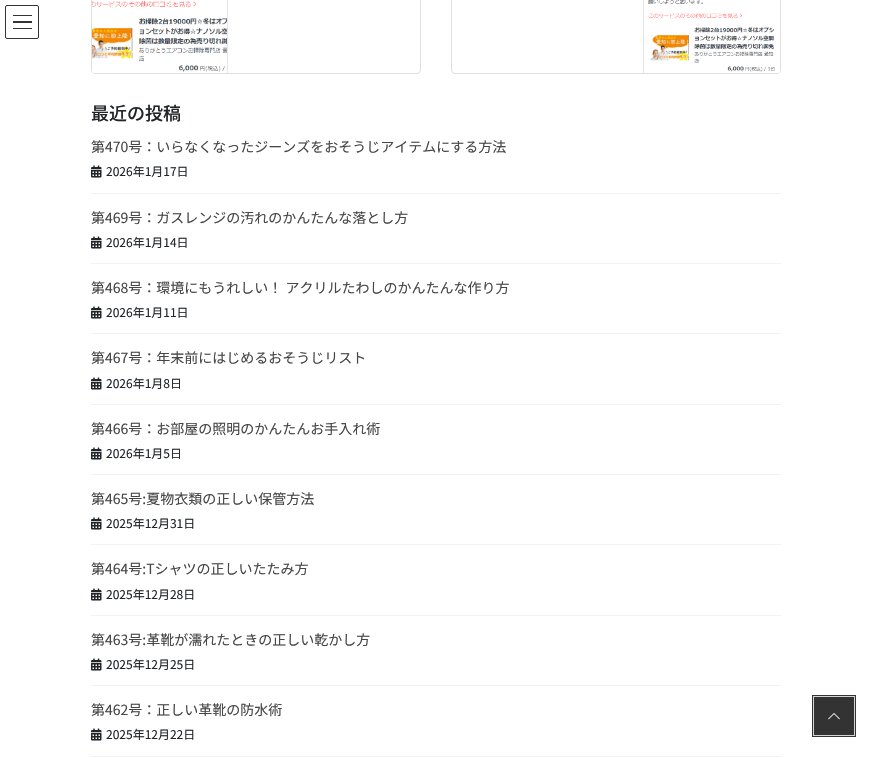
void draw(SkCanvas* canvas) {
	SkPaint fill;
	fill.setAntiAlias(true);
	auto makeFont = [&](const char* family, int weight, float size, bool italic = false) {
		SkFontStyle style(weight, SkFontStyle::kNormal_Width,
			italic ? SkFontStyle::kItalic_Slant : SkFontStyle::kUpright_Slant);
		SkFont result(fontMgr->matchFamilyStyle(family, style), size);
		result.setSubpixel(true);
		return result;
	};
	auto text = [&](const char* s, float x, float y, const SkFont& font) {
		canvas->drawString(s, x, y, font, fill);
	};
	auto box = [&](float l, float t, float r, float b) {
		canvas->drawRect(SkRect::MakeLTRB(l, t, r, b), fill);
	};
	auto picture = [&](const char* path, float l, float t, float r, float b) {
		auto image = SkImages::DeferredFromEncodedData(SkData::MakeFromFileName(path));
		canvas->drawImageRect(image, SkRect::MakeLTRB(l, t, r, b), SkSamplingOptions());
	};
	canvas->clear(0xFFFFFFFF);
	fill.setColor(0xFF333333);
	box(13, 15, 32, 16);
	box(13, 21, 32, 23);
	box(13, 28, 32, 29);
	fill.setStyle(SkPaint::kStroke_Style);
	fill.setStrokeWidth(1);
	canvas->drawRoundRect(SkRect::MakeLTRB(5.5f, 5.5f, 38.5f, 38.5f), 1.5f, 1.5f, fill);
	fill.setColor(0xFFDFDFDF);
	canvas->drawRoundRect(SkRect::MakeLTRB(91.5f, -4.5f, 420.5f, 73.5f), 3.5f, 3.5f, fill);
	picture("image0.png", 92, 1, 227, 73);
	fill.setStyle(SkPaint::kFill_Style);
	fill.setColor(0xFFE5E5E5);
	box(227, 0, 228, 73);
	fill.setStyle(SkPaint::kStroke_Style);
	fill.setColor(0xFFDFDFDF);
	canvas->drawRoundRect(SkRect::MakeLTRB(451.5f, -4.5f, 780.5f, 73.5f), 3.5f, 3.5f, fill);
	picture("image1.png", 647, 0, 780, 73);
	fill.setStyle(SkPaint::kFill_Style);
	fill.setColor(0xFFE5E5E5);
	box(643, 0, 644, 73);
	fill.setColor(0xFFF2F2F2);
	box(91, 193, 781, 194);
	picture("image2.png", 91, 165, 102, 178);
	box(91, 263, 781, 264);
	picture("image2.png", 91, 236, 102, 249);
	box(91, 333, 781, 334);
	picture("image2.png", 91, 306, 102, 319);
	box(91, 404, 781, 405);
	picture("image2.png", 91, 377, 102, 390);
	box(91, 474, 781, 475);
	picture("image2.png", 91, 447, 102, 460);
	box(91, 544, 781, 545);
	picture("image2.png", 91, 517, 102, 530);
	box(91, 615, 781, 616);
	picture("image2.png", 91, 588, 102, 601);
	box(91, 685, 781, 686);
	picture("image2.png", 91, 658, 102, 671);
	box(91, 756, 781, 757);
	picture("image2.png", 91, 728, 102, 741);
	fill.setStyle(SkPaint::kStroke_Style);
	fill.setStrokeWidth(2);
	fill.setColor(0xFF333333);
	canvas->drawRect(SkRect::MakeLTRB(813, 696, 855, 736), fill);
	fill.setStrokeWidth(1);
	fill.setColor(0xFFD6D6D6);
	canvas->drawRect(SkRect::MakeLTRB(813.5f, 696.5f, 854.5f, 735.5f), fill);
	fill.setStyle(SkPaint::kFill_Style);
	fill.setColor(0xFF333333);
	box(814, 697, 854, 735);
	picture("image3.png", 828, 713, 840, 720);
	auto font1 = makeFont("Noto Sans JP", 500, 18);
	fill.setColor(0xFF212529);
	text("最近の投稿", 91, 120, font1);
	auto font2 = makeFont("Noto Sans JP", 400, 14);
	fill.setColor(0xFF464646);
	text("第470号：いらなくなったジーンズをおそうじアイテムにする方法", 91, 152, font2);
	auto font3 = makeFont("Noto Sans JP", 400, 12);
	fill.setColor(0xFF212529);
	text("2026年1月17日", 106, 176, font3);
	fill.setColor(0xFF464646);
	text("第469号：ガスレンジの汚れのかんたんな落とし方", 91, 223, font2);
	fill.setColor(0xFF212529);
	text("2026年1月14日", 106, 247, font3);
	fill.setColor(0xFF464646);
	text("第468号：環境にもうれしい！ アクリルたわしのかんたんな作り方", 91, 293, font2);
	fill.setColor(0xFF212529);
	text("2026年1月11日", 106, 317, font3);
	fill.setColor(0xFF464646);
	text("第467号：年末前にはじめるおそうじリスト", 91, 363, font2);
	fill.setColor(0xFF212529);
	text("2026年1月8日", 106, 388, font3);
	fill.setColor(0xFF464646);
	text("第466号：お部屋の照明のかんたんお手入れ術", 91, 434, font2);
	fill.setColor(0xFF212529);
	text("2026年1月5日", 106, 458, font3);
	fill.setColor(0xFF464646);
	text("第465号:夏物衣類の正しい保管方法", 91, 504, font2);
	fill.setColor(0xFF212529);
	text("2025年12月31日", 106, 528, font3);
	fill.setColor(0xFF464646);
	text("第464号:Tシャツの正しいたたみ方", 91, 574, font2);
	fill.setColor(0xFF212529);
	text("2025年12月28日", 106, 599, font3);
	fill.setColor(0xFF464646);
	text("第463号:革靴が濡れたときの正しい乾かし方", 91, 645, font2);
	fill.setColor(0xFF212529);
	text("2025年12月25日", 106, 669, font3);
	fill.setColor(0xFF464646);
	text("第462号：正しい革靴の防水術", 91, 715, font2);
	fill.setColor(0xFF212529);
	text("2025年12月22日", 106, 739, font3);
}
